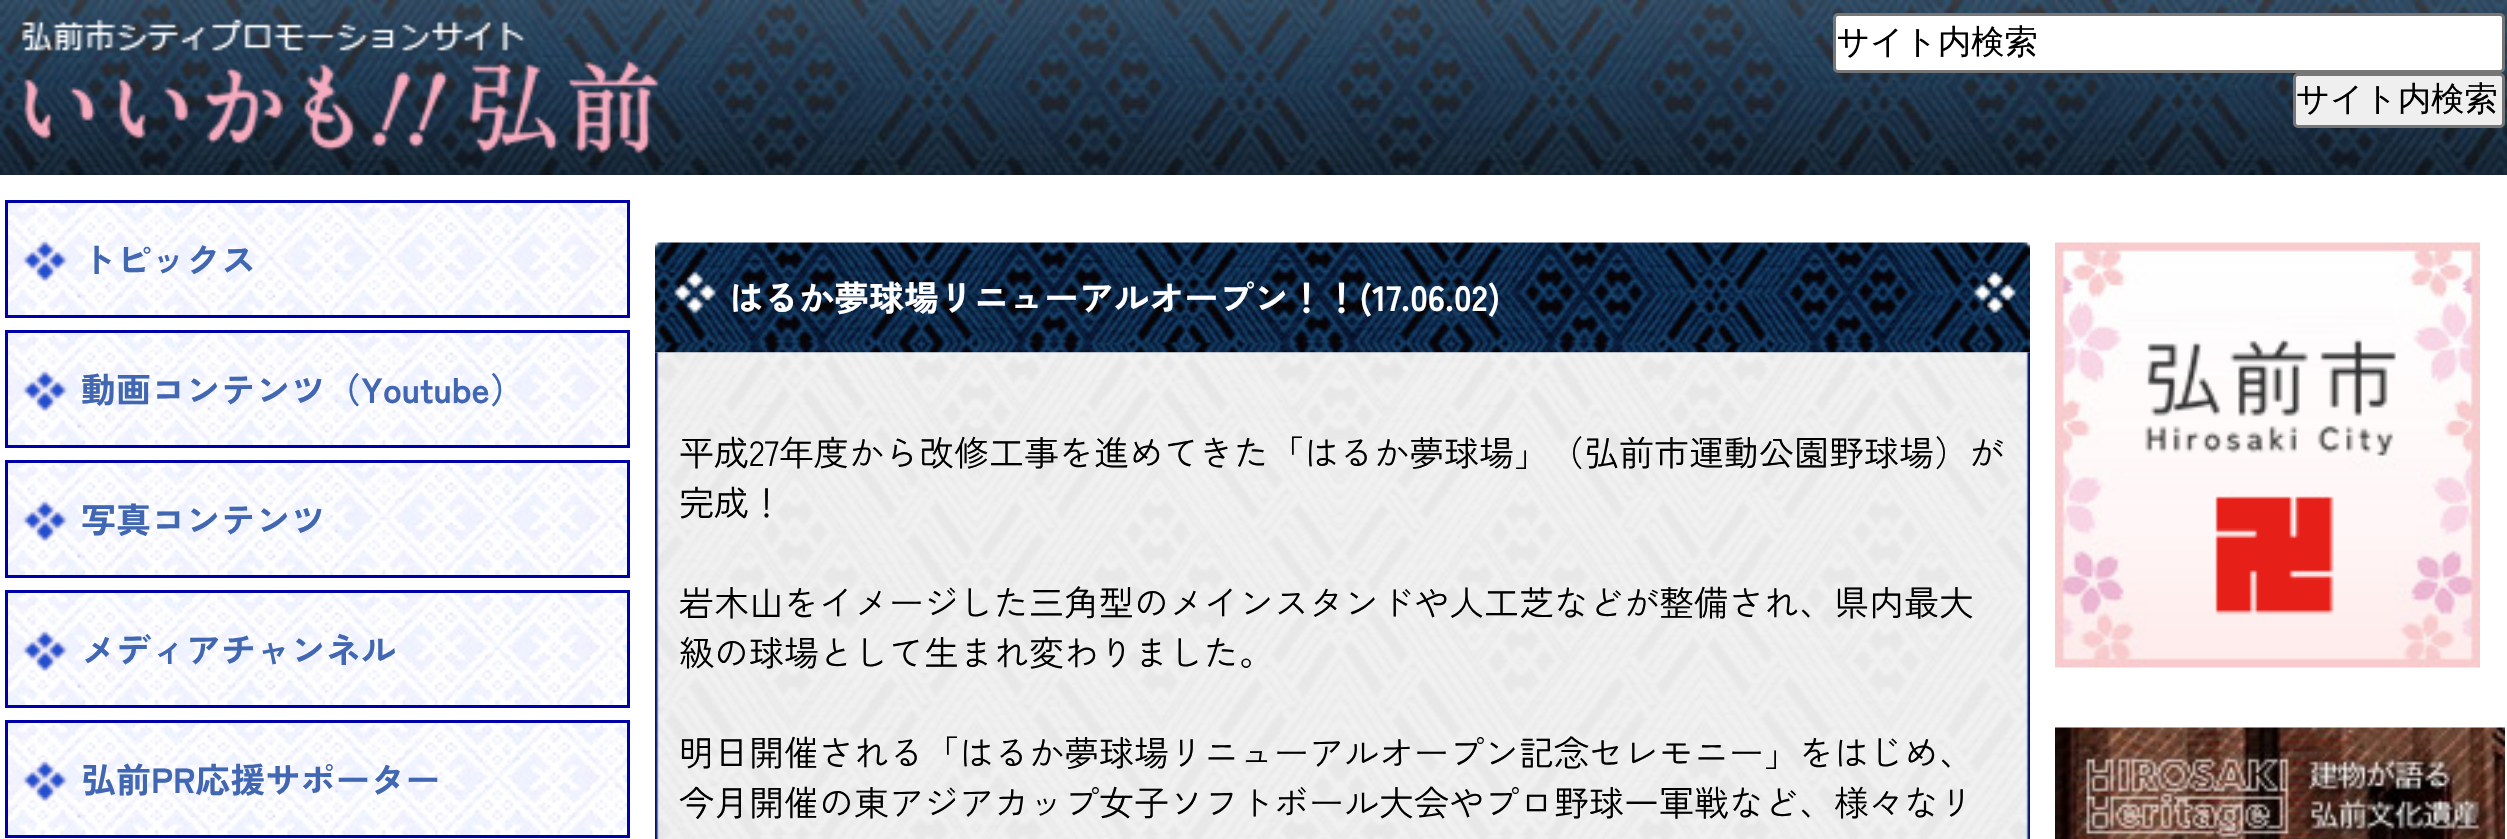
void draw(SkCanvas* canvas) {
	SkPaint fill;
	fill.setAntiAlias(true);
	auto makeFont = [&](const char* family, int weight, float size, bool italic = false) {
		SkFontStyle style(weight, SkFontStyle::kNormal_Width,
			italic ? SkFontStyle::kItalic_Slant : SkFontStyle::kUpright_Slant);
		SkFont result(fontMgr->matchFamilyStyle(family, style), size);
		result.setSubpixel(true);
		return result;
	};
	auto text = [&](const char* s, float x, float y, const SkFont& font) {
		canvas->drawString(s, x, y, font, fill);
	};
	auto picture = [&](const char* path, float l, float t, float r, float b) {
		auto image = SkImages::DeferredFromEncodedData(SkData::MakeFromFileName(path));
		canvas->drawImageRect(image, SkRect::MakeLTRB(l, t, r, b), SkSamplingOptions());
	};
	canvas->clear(0xFFFFFFFF);
	picture("image0.png", 0, 0, 2507, 175);
	picture("image1.png", 21, 19, 659, 154);
	fill.setColor(0xFFFFFFFF);
	canvas->drawRoundRect(SkRect::MakeLTRB(1834.5f, 14.5f, 2503.5f, 71.5f), 3.5f, 3.5f, fill);
	fill.setStyle(SkPaint::kStroke_Style);
	fill.setStrokeWidth(3);
	fill.setColor(0xFF767676);
	canvas->drawRoundRect(SkRect::MakeLTRB(1834.5f, 14.5f, 2503.5f, 71.5f), 3.5f, 3.5f, fill);
	fill.setStyle(SkPaint::kFill_Style);
	fill.setColor(0xFFEFEFEF);
	canvas->drawRoundRect(SkRect::MakeLTRB(2294.5f, 74.5f, 2503.5f, 126.5f), 3.5f, 3.5f, fill);
	fill.setStyle(SkPaint::kStroke_Style);
	fill.setColor(0xFF767676);
	canvas->drawRoundRect(SkRect::MakeLTRB(2294.5f, 74.5f, 2503.5f, 126.5f), 3.5f, 3.5f, fill);
	picture("image2.png", 8, 203, 627, 315);
	fill.setColor(0xFF0000AA);
	canvas->drawRect(SkRect::MakeLTRB(6.5f, 201.5f, 628.5f, 316.5f), fill);
	picture("image2.png", 8, 333, 627, 445);
	canvas->drawRect(SkRect::MakeLTRB(6.5f, 331.5f, 628.5f, 446.5f), fill);
	picture("image2.png", 8, 463, 627, 575);
	canvas->drawRect(SkRect::MakeLTRB(6.5f, 461.5f, 628.5f, 576.5f), fill);
	picture("image2.png", 8, 593, 627, 705);
	canvas->drawRect(SkRect::MakeLTRB(6.5f, 591.5f, 628.5f, 706.5f), fill);
	picture("image2.png", 8, 723, 627, 835);
	canvas->drawRect(SkRect::MakeLTRB(6.5f, 721.5f, 628.5f, 836.5f), fill);
	picture("image3.png", 655, 242, 2030, 353);
	picture("image4.png", 655, 352, 2030, 839);
	picture("image5.png", 2055, 242, 2480, 668);
	picture("image6.png", 2055, 727, 2505, 839);
	canvas->save();
	canvas->clipRect(SkRect::MakeLTRB(1838, 20, 2500, 65));
	auto font1 = makeFont("WenQuanYi Zen Hei", 500, 33.25f);
	fill.setStyle(SkPaint::kFill_Style);
	fill.setColor(0xFF000000);
	text("サイト内検索", 1836, 53, font1);
	canvas->restore();
	text("サイト内検索", 2296, 110, font1);
	auto font2 = makeFont("Zen Kaku Gothic New", 700, 35);
	fill.setColor(0xFF4267B2);
	text("トピックス", 81, 273, font2);
	text("動画コンテンツ（Youtube）", 81, 403, font2);
	text("写真コンテンツ", 81, 533, font2);
	text("メディアチャンネル", 81, 663, font2);
	text("弘前PR応援サポーター", 81, 793, font2);
	fill.setColor(0xFFFFFFFF);
	text("はるか夢球場リニューアルオープン！！(17.06.02)", 729, 311, font2);
	auto font3 = makeFont("Zen Kaku Gothic New", 400, 35);
	fill.setColor(0xFF000000);
	text("平成27年度から改修工事を進めてきた「はるか夢球場」（弘前市運動公園野球場）が", 679, 466, font3);
	text("完成！", 679, 516, font3);
	text("岩木山をイメージした三角型のメインスタンドや人工芝などが整備され、県内最大", 679, 616, font3);
	text("級の球場として生まれ変わりました。", 679, 666, font3);
	text("明日開催される「はるか夢球場リニューアルオープン記念セレモニー」をはじめ、", 679, 766, font3);
	text("今月開催の東アジアカップ女子ソフトボール大会やプロ野球一軍戦など、様々なリ", 679, 816, font3);
}
